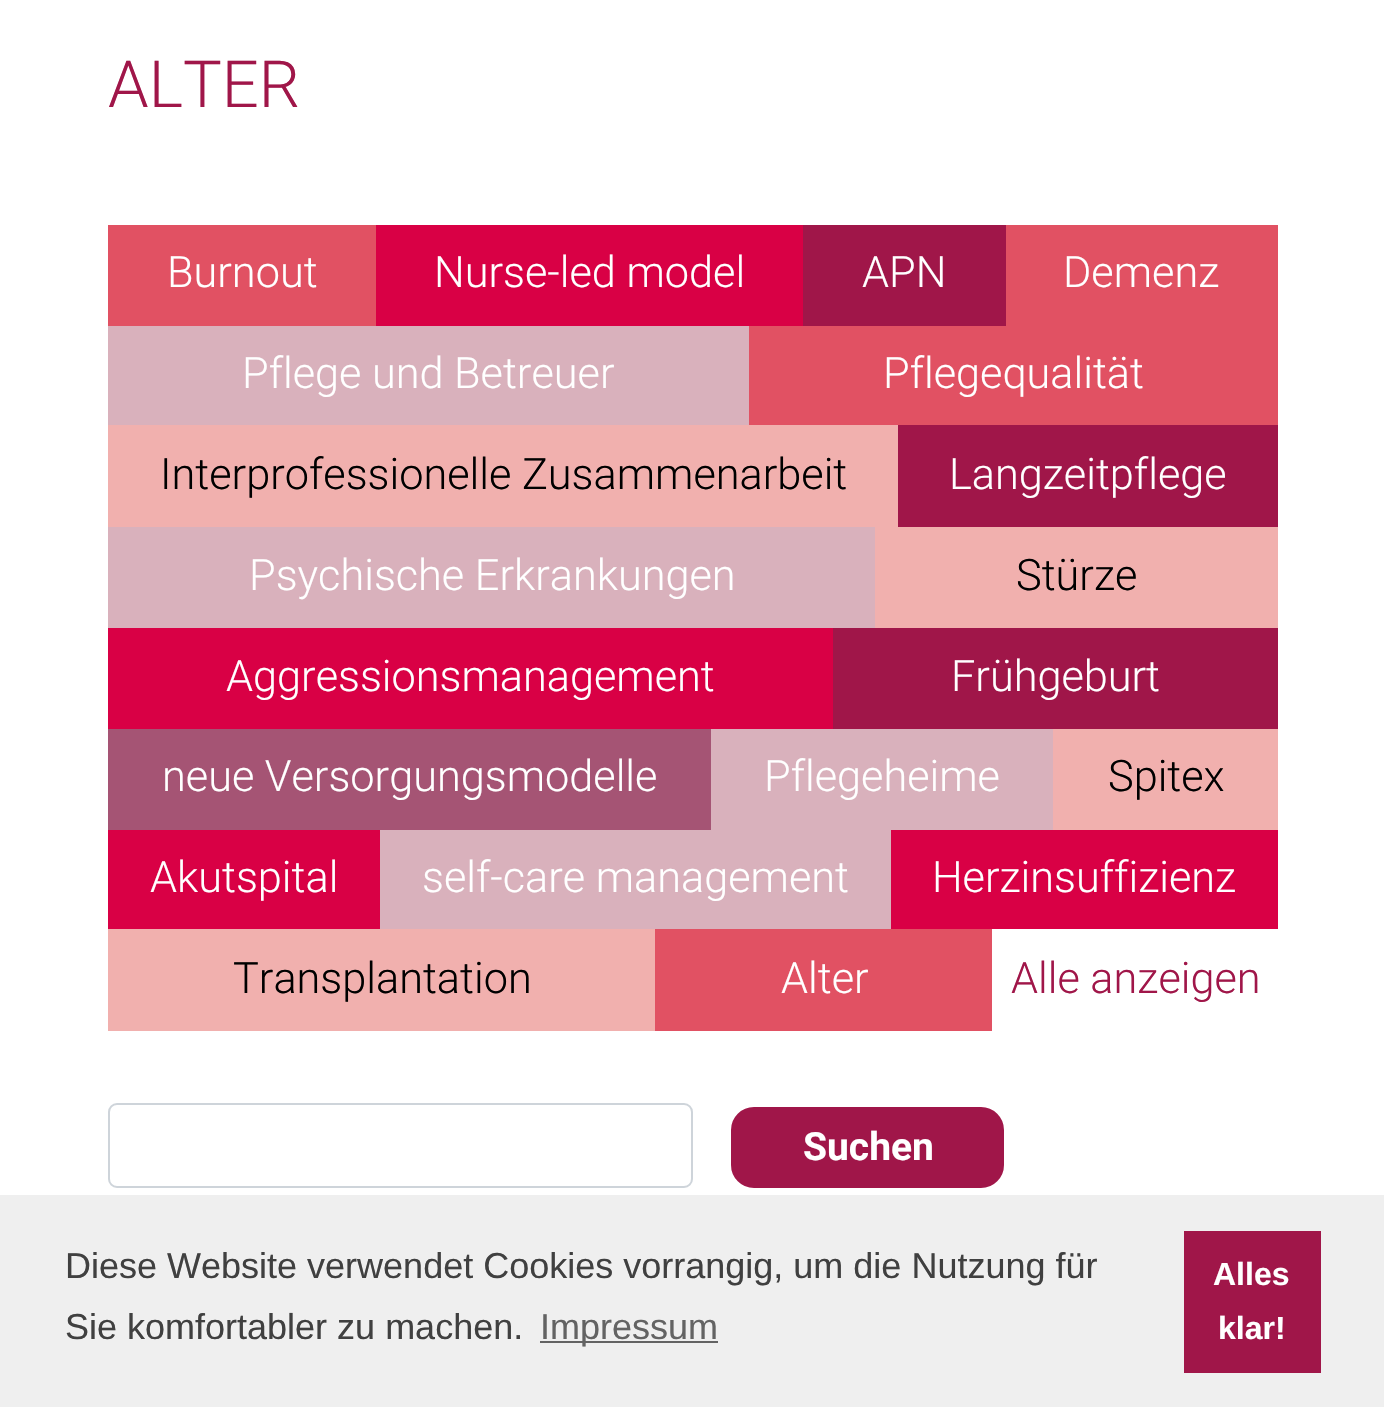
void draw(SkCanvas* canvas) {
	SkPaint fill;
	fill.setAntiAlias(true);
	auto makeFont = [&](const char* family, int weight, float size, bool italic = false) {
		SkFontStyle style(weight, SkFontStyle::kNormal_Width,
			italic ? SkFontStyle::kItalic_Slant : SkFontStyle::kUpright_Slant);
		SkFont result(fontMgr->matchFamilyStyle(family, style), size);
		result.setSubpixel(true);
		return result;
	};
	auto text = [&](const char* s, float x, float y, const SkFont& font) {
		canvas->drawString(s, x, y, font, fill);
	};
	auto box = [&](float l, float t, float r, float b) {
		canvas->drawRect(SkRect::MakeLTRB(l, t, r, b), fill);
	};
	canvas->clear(0xFFFFFFFF);
	fill.setColor(0xFFE15163);
	box(108, 225, 376, 326);
	fill.setColor(0xFFD90045);
	box(376, 225, 803, 326);
	fill.setColor(0xFFA01649);
	box(803, 225, 1006, 326);
	fill.setColor(0xFFE15163);
	box(1006, 225, 1278, 326);
	fill.setColor(0xFFD9B1BC);
	box(108, 326, 749, 425);
	fill.setColor(0xFFE15163);
	box(749, 326, 1278, 425);
	fill.setColor(0xFFF1B0AE);
	box(108, 425, 898, 527);
	fill.setColor(0xFFA01649);
	box(898, 425, 1278, 527);
	fill.setColor(0xFFD9B1BC);
	box(108, 527, 875, 628);
	fill.setColor(0xFFF1B0AE);
	box(875, 527, 1278, 628);
	fill.setColor(0xFFD90045);
	box(108, 628, 833, 729);
	fill.setColor(0xFFA01649);
	box(833, 628, 1278, 729);
	fill.setColor(0xFFA55474);
	box(108, 729, 711, 830);
	fill.setColor(0xFFD9B1BC);
	box(711, 729, 1053, 830);
	fill.setColor(0xFFF1B0AE);
	box(1053, 729, 1278, 830);
	fill.setColor(0xFFD90045);
	box(108, 830, 380, 929);
	fill.setColor(0xFFD9B1BC);
	box(380, 830, 891, 929);
	fill.setColor(0xFFD90045);
	box(891, 830, 1278, 929);
	fill.setColor(0xFFF1B0AE);
	box(108, 929, 655, 1031);
	fill.setColor(0xFFE15163);
	box(655, 929, 992, 1031);
	fill.setStyle(SkPaint::kStroke_Style);
	fill.setStrokeWidth(2);
	fill.setColor(0xFFCED4DA);
	canvas->drawRoundRect(SkRect::MakeLTRB(109, 1104, 692, 1187), 8, 8, fill);
	fill.setStyle(SkPaint::kFill_Style);
	fill.setColor(0xFFA01649);
	canvas->drawRoundRect(SkRect::MakeLTRB(732, 1108, 1003, 1187), 22, 22, fill);
	fill.setStyle(SkPaint::kStroke_Style);
	canvas->drawRoundRect(SkRect::MakeLTRB(732, 1108, 1003, 1187), 22, 22, fill);
	fill.setStyle(SkPaint::kFill_Style);
	fill.setColor(0xFFEFEFEF);
	box(0, 1195, 1384, 1407);
	fill.setColor(0xFF636363);
	box(540, 1341, 718, 1343);
	fill.setColor(0xFFA01649);
	box(1184, 1231, 1321, 1373);
	auto font1 = makeFont("Roboto", 300, 65);
	text("ALTER", 108, 107, font1);
	auto font2 = makeFont("Roboto", 300, 43.25f);
	fill.setColor(0xFFFFFFFF);
	text("Burnout", 167, 287, font2);
	text("Nurse-led model", 434, 287, font2);
	text("APN", 862, 287, font2);
	text("Demenz", 1063, 287, font2);
	text("Pflege und Betreuer", 242, 388, font2);
	text("Pflegequalität", 883, 388, font2);
	fill.setColor(0xFF000000);
	text("Interprofessionelle Zusammenarbeit", 160, 489, font2);
	fill.setColor(0xFFFFFFFF);
	text("Langzeitpflege", 949, 489, font2);
	text("Psychische Erkrankungen", 249, 590, font2);
	fill.setColor(0xFF000000);
	text("Stürze", 1016, 590, font2);
	fill.setColor(0xFFFFFFFF);
	text("Aggressionsmanagement", 226, 691, font2);
	text("Frühgeburt", 951, 691, font2);
	text("neue Versorgungsmodelle", 162, 791, font2);
	text("Pflegeheime", 764, 791, font2);
	fill.setColor(0xFF000000);
	text("Spitex", 1108, 791, font2);
	fill.setColor(0xFFFFFFFF);
	text("Akutspital", 150, 892, font2);
	text("self-care management", 422, 892, font2);
	text("Herzinsuffizienz", 932, 892, font2);
	fill.setColor(0xFF000000);
	text("Transplantation", 233, 993, font2);
	fill.setColor(0xFFFFFFFF);
	text("Alter", 781, 993, font2);
	fill.setColor(0xFFA01649);
	text("Alle anzeigen", 1011, 993, font2);
	auto font3 = makeFont("Roboto", 700, 39);
	fill.setColor(0xFFFFFFFF);
	text("Suchen", 803, 1160, font3);
	auto font4 = makeFont("Liberation Sans", 400, 36);
	fill.setColor(0xFF404040);
	text("Diese Website verwendet Cookies vorrangig, um die Nutzung für", 65, 1278, font4);
	text("Sie komfortabler zu machen.", 65, 1339, font4);
	fill.setColor(0xFF636363);
	text("Impressum", 540, 1339, font4);
	auto font5 = makeFont("Liberation Sans", 700, 32);
	fill.setColor(0xFFFFFFFF);
	text("Alles", 1213, 1285, font5);
	text("klar!", 1218, 1339, font5);
}
